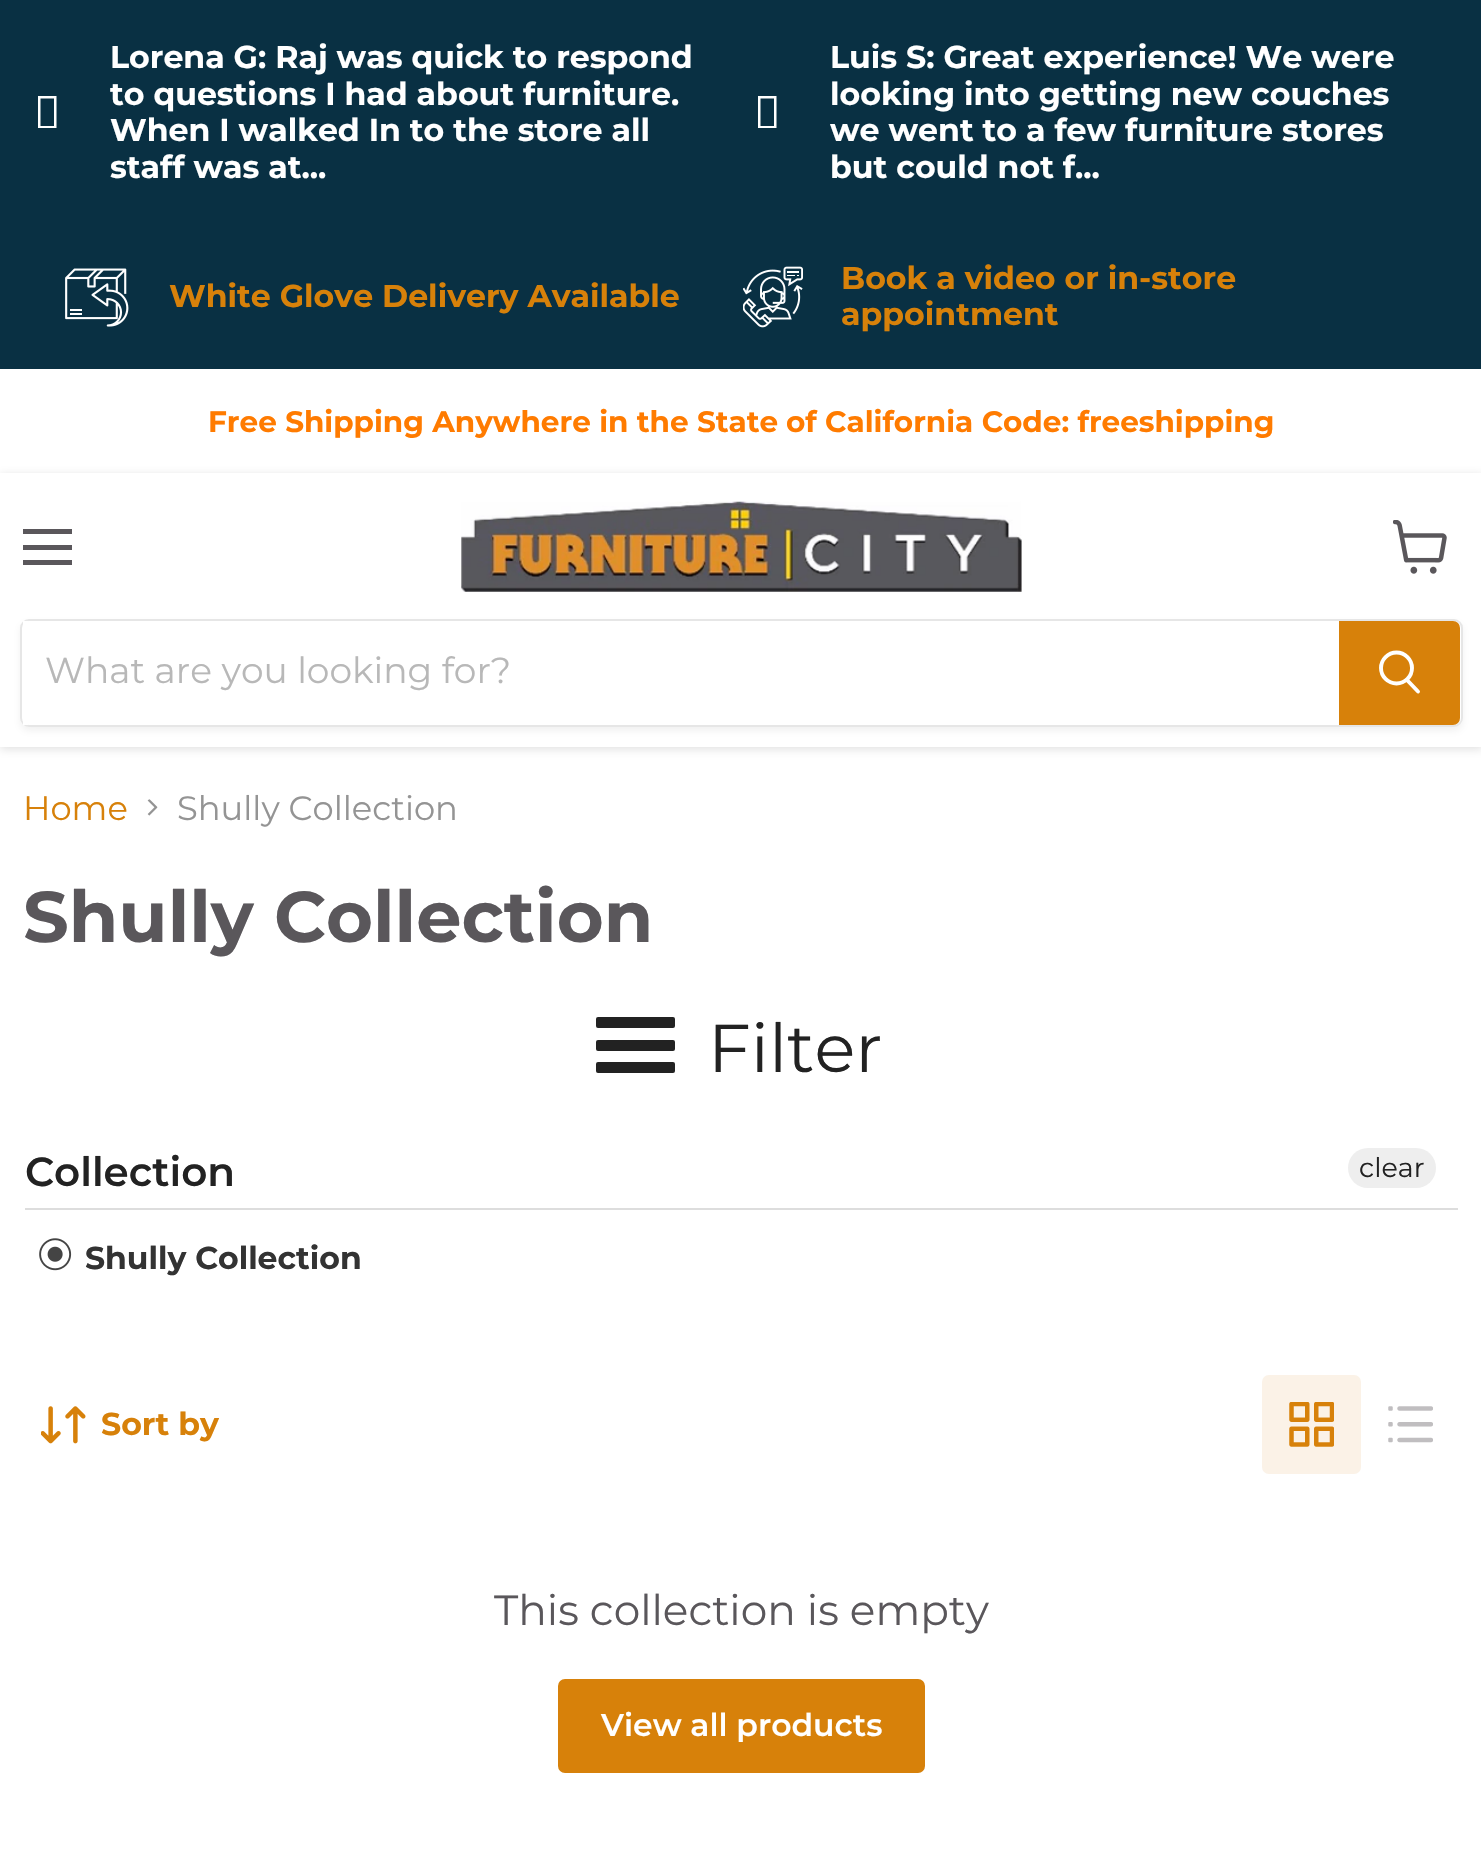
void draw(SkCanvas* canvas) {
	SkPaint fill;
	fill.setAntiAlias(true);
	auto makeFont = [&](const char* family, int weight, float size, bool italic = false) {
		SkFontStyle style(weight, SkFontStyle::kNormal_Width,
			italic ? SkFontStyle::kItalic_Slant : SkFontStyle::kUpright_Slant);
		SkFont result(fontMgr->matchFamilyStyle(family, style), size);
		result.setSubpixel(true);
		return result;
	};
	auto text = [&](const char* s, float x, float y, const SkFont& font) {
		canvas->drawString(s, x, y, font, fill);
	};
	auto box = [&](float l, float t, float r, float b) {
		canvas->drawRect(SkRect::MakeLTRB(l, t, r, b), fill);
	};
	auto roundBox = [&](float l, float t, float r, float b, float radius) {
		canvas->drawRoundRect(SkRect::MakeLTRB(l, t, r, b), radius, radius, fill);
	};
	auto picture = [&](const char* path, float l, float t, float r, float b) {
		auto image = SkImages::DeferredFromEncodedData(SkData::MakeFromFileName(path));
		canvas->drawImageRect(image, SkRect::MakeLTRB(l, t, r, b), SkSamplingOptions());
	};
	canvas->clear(0xFFFFFFFF);
	fill.setColor(0xFF093043);
	box(0, 0, 1481, 369);
	fill.setColor(0xFFFFFFFF);
	canvas->drawPath(SkPathBuilder().moveTo(38, 128).lineTo(38, 96).lineTo(56.5f, 96).lineTo(56.5f, 128).close().moveTo(40.5f, 126).lineTo(54, 126).lineTo(54, 98.5f).lineTo(40.5f, 98.5f).close().detach(), fill);
	canvas->drawPath(SkPathBuilder().moveTo(758, 128).lineTo(758, 96).lineTo(776.5f, 96).lineTo(776.5f, 128).close().moveTo(760.5f, 126).lineTo(774, 126).lineTo(774, 98.5f).lineTo(760.5f, 98.5f).close().detach(), fill);
	picture("image0.png", 65, 268, 129, 327);
	picture("image1.png", 743, 266, 803, 328);
	canvas->save();
	canvas->clipPath(SkPathBuilder(SkPathFillType::kEvenOdd).moveTo(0, 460).lineTo(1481, 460).lineTo(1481, 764).lineTo(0, 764).close().moveTo(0, 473).lineTo(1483, 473).lineTo(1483, 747).lineTo(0, 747).close().detach(), true);
	fill.setColor(0x40808080);
	fill.setMaskFilter(SkMaskFilter::MakeBlur(kNormal_SkBlurStyle, 4.5f));
	canvas->drawRect(SkRect::MakeLTRB(0, 475, 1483, 749), fill);
	fill.setMaskFilter(nullptr);
	canvas->restore();
	fill.setColor(0xFF5A575B);
	box(23, 529, 72, 534);
	box(23, 545, 72, 550);
	box(23, 560, 72, 565);
	picture("image2.png", 1393, 520, 1447, 574);
	picture("image3.png", 461, 501, 1022, 592);
	canvas->save();
	canvas->clipPath(SkPathBuilder(SkPathFillType::kEvenOdd).moveTo(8, 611).lineTo(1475, 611).lineTo(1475, 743).lineTo(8, 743).close().moveTo(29, 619).lineTo(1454, 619).cubicTo(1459, 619, 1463, 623, 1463, 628).lineTo(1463, 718).cubicTo(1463, 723, 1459, 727, 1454, 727).lineTo(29, 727).cubicTo(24, 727, 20, 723, 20, 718).lineTo(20, 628).cubicTo(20, 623, 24, 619, 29, 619).close().detach(), true);
	fill.setColor(0x1C808080);
	fill.setMaskFilter(SkMaskFilter::MakeBlur(kNormal_SkBlurStyle, 3.5f));
	canvas->drawRoundRect(SkRect::MakeLTRB(20, 623, 1463, 731), 9, 9, fill);
	fill.setMaskFilter(nullptr);
	canvas->restore();
	fill.setStyle(SkPaint::kStroke_Style);
	fill.setStrokeWidth(2);
	fill.setColor(0x33808080);
	canvas->drawRoundRect(SkRect::MakeLTRB(21, 620, 1462, 726), 8, 8, fill);
	fill.setStyle(SkPaint::kFill_Style);
	fill.setColor(0xFFFFFFFF);
	box(23, 621, 28, 725);
	fill.setColor(0xFFD7810A);
	canvas->drawPath(SkPathBuilder().moveTo(1340, 622).lineTo(1453, 622).cubicTo(1456.5f, 622, 1459, 624.5f, 1459, 628).lineTo(1459, 718).cubicTo(1459, 721.5f, 1456.5f, 724, 1453, 724).lineTo(1340, 724).close().detach(), fill);
	fill.setStyle(SkPaint::kStroke_Style);
	canvas->drawPath(SkPathBuilder().moveTo(1340, 622).lineTo(1453, 622).cubicTo(1456.5f, 622, 1459, 624.5f, 1459, 628).lineTo(1459, 718).cubicTo(1459, 721.5f, 1456.5f, 724, 1453, 724).lineTo(1340, 724).close().detach(), fill);
	fill.setStrokeWidth(3.9f);
	fill.setStrokeCap(SkPaint::kRound_Cap);
	fill.setColor(0xFFFFFFFF);
	canvas->drawPath(SkPathBuilder().moveTo(1418, 691.5f).lineTo(1407.5f, 680.5f).detach(), fill);
	fill.setStrokeCap(SkPaint::kButt_Cap);
	canvas->drawCircle(1396.5f, 668, 15.5f, fill);
	picture("image4.png", 147, 799, 158, 816);
	fill.setStyle(SkPaint::kFill_Style);
	fill.setColor(0xFF222222);
	roundBox(596, 1040, 675, 1051, 2);
	roundBox(596, 1017, 675, 1028, 2);
	roundBox(596, 1062, 675, 1073, 2);
	fill.setColor(0xFFDDDDDD);
	box(25, 1208, 1458, 1210);
	fill.setColor(0xFFEEEEEE);
	roundBox(1348, 1148, 1436, 1188, 20);
	picture("image5.png", 39, 1238, 72, 1271);
	picture("image6.png", 41, 1406, 86, 1444);
	fill.setColor(0xFFFBF2E7);
	roundBox(1262, 1375, 1361, 1474, 7);
	picture("image7.png", 1289, 1402, 1334, 1447);
	picture("image8.png", 1388, 1406, 1433, 1443);
	fill.setColor(0xFFD7810A);
	canvas->drawRoundRect(SkRect::MakeLTRB(559, 1680, 924, 1772), 6, 6, fill);
	fill.setStyle(SkPaint::kStroke_Style);
	fill.setStrokeWidth(2);
	canvas->drawRoundRect(SkRect::MakeLTRB(559, 1680, 924, 1772), 6, 6, fill);
	auto font1 = makeFont("Montserrat", 700, 31.6f);
	fill.setStyle(SkPaint::kFill_Style);
	fill.setColor(0xFFFFFFFF);
	text("Lorena G: Raj was quick to respond", 110, 68, font1);
	text("to questions I had about furniture.", 110, 105, font1);
	text("When I walked In to the store all", 110, 141, font1);
	text("staff was at...", 110, 178, font1);
	text("Luis S: Great experience! We were", 830, 68, font1);
	text("looking into getting new couches", 830, 105, font1);
	text("we went to a few furniture stores", 830, 141, font1);
	text("but could not f...", 830, 178, font1);
	fill.setColor(0xFFD7810A);
	text("White Glove Delivery Available", 169, 307, font1);
	text("Book a video or in-store", 841, 289, font1);
	text("appointment", 841, 325, font1);
	auto font2 = makeFont("Montserrat", 700, 29.5f);
	fill.setColor(0xFFFF7B00);
	text("Free Shipping Anywhere in the State", 208, 432, font2);
	text("of California Code: freeshipping", 786, 432, font2);
	auto font3 = makeFont("Montserrat", 400, 36);
	fill.setColor(0xFFB8B8B8);
	text("What are you looking for?", 45, 683, font3);
	auto font4 = makeFont("Montserrat", 400, 33.75f);
	fill.setColor(0xFFD7810A);
	text("Home", 23, 820, font4);
	fill.setColor(0xFF949494);
	text("Shully Collection", 177, 820, font4);
	auto font5 = makeFont("Montserrat", 700, 71.75f);
	fill.setColor(0xFF5A575B);
	text("Shully Collection", 23, 942, font5);
	auto font6 = makeFont("Montserrat", 400, 67.5f);
	fill.setColor(0xFF222222);
	text("Filter", 708, 1072, font6);
	auto font7 = makeFont("Montserrat", 600, 40.5f);
	text("Collection", 25, 1186, font7);
	auto font8 = makeFont("Montserrat", 400, 27);
	text("clear", 1359, 1177, font8);
	auto font9 = makeFont("Montserrat", 700, 31.5f);
	fill.setColor(0xFF333333);
	text("Shully Collection", 85, 1269, font9);
	fill.setColor(0xFFD7810A);
	text("Sort by", 101, 1435, font1);
	auto font10 = makeFont("Montserrat", 400, 42.25f);
	fill.setColor(0xFF5A575B);
	text("This collection is empty", 494, 1625, font10);
	auto font11 = makeFont("Montserrat", 600, 31.5f);
	fill.setColor(0xFFFFFFFF);
	text("View all products", 601, 1736, font11);
}
